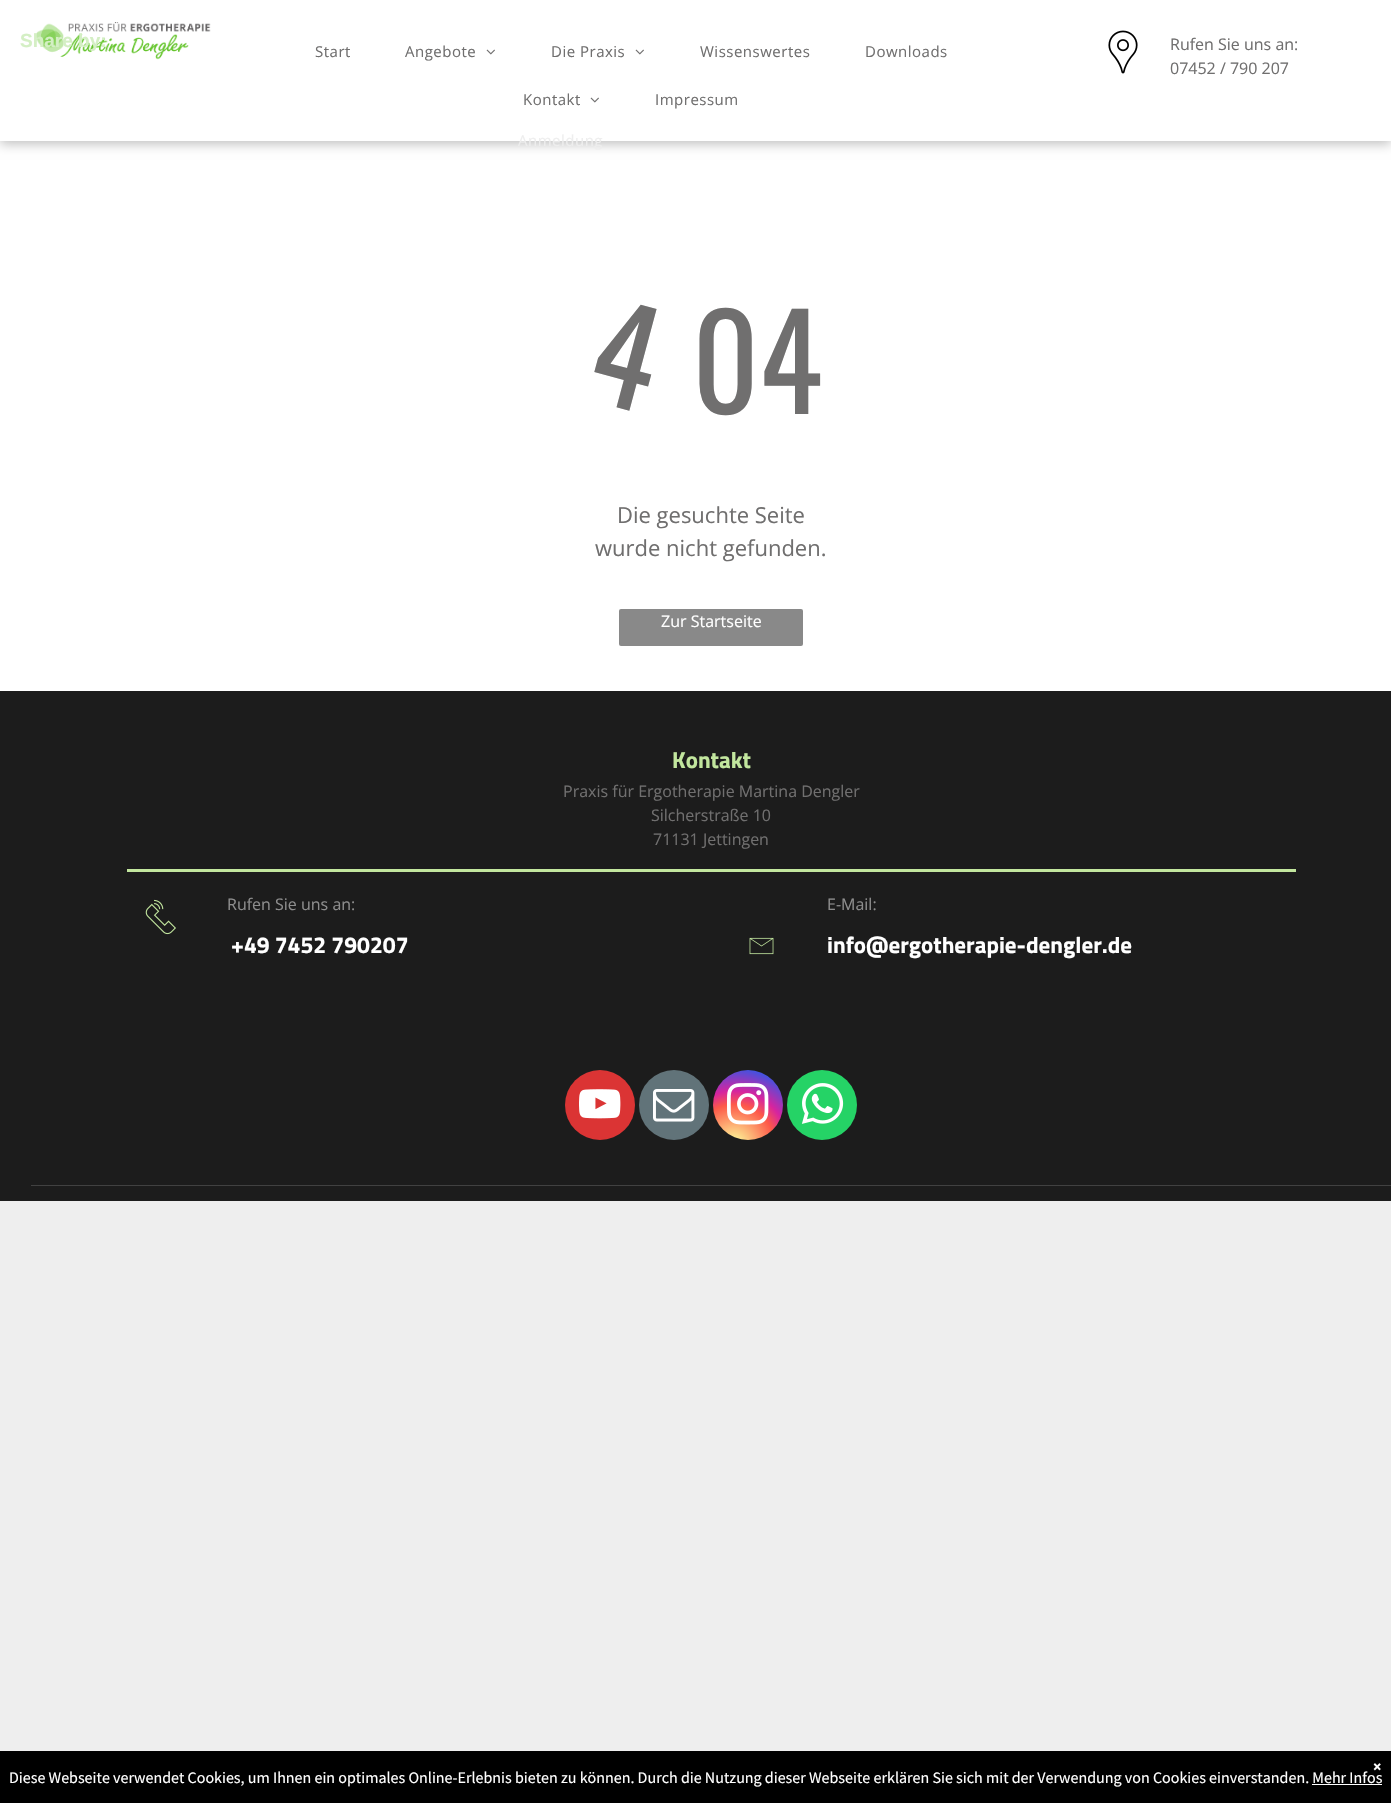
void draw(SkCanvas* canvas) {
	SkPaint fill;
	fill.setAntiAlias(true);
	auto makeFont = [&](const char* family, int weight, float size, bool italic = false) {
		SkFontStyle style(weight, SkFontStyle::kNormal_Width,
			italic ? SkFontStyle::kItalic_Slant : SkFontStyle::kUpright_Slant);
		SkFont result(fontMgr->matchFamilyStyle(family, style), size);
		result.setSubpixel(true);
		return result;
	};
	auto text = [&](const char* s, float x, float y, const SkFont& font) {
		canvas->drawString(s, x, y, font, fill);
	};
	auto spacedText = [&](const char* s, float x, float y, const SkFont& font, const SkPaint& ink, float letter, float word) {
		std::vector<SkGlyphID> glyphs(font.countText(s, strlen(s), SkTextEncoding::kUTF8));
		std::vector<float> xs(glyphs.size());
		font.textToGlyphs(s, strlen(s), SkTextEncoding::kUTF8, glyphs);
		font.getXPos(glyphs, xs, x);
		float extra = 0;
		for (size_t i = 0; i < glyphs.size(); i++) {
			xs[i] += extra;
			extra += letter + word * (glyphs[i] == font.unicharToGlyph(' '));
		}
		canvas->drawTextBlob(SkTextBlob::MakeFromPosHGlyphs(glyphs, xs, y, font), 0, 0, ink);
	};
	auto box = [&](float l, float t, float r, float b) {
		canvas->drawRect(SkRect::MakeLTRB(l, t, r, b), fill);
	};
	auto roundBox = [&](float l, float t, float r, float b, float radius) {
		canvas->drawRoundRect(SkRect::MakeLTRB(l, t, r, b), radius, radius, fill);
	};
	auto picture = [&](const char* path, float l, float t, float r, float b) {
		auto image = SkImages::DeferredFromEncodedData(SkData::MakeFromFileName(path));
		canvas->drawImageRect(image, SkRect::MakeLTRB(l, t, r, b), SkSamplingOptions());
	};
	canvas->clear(0xFFEEEEEE);
	fill.setColor(0xFFFFFFFF);
	box(0, 141, 1391, 691);
	fill.setColor(0x40000000);
	fill.setMaskFilter(SkMaskFilter::MakeBlur(kNormal_SkBlurStyle, 5.5f));
	canvas->drawRect(SkRect::MakeLTRB(0, 3, 1391, 144), fill);
	fill.setMaskFilter(nullptr);
	fill.setColor(0xFFFFFFFF);
	box(0, 0, 1391, 141);
	picture("image0.png", 36, 22, 211, 60);
	picture("image1.png", 486, 49, 495, 55);
	picture("image1.png", 635, 49, 644, 55);
	picture("image1.png", 590, 97, 599, 103);
	picture("image2.png", 1108, 30, 1138, 74);
	fill.setColor(0xFF898989);
	roundBox(619, 609, 803, 646, 2);
	fill.setColor(0xFF1C1C1C);
	box(0, 691, 1391, 1201);
	fill.setColor(0xFFC2E69E);
	box(127, 869, 1296, 870);
	box(1294, 869, 1296, 872);
	box(127, 870, 1296, 872);
	picture("image3.png", 145, 899, 176, 935);
	picture("image4.png", 749, 937, 774, 955);
	fill.setColor(0xFFDB3434);
	canvas->drawCircle(600, 1105, 35, fill);
	picture("image5.png", 579, 1089, 621, 1119);
	fill.setColor(0xFF617379);
	canvas->drawCircle(674, 1105, 35, fill);
	picture("image6.png", 653, 1089, 695, 1122);
	{
		const SkColor colors[] = {0xFFFDF497, 0xFFFDF497, 0xFFFD5949, 0xFFD6249F, 0xFF285AEB};
		const float stops[] = {0, 0.05f, 0.45f, 0.6f, 0.9f};
		fill.setShader(SkGradientShader::MakeRadial({734, 1145}, 90, colors, stops, 5, SkTileMode::kClamp));
		fill.setAlpha(255);
	}
	canvas->drawCircle(748, 1105, 35, fill);
	picture("image7.png", 727, 1083, 769, 1125);
	fill.setShader(nullptr);
	fill.setColor(0xFF25D366);
	canvas->drawCircle(822, 1105, 35, fill);
	picture("image8.png", 801, 1083, 844, 1124);
	fill.setColor(0xFF414141);
	box(31, 1185, 1391, 1186);
	fill.setColor(0xFF000000);
	box(0, 1751, 1391, 1803);
	fill.setColor(0xFFFFFFFF);
	box(1312, 1784, 1382, 1785);
	auto font1 = makeFont("Liberation Sans", 700, 19);
	fill.setColor(0xFFD4EFC4);
	text("Share by:", 20, 47, font1);
	auto font2 = makeFont("Open Sans", 400, 15);
	fill.setColor(0xFF706F6F);
	spacedText("Start", 315, 57, font2, fill, 0.5f, 0);
	spacedText("Angebote", 405, 57, font2, fill, 0.5f, 0);
	spacedText("Die Praxis", 551, 57, font2, fill, 0.5f, 0);
	spacedText("Wissenswertes", 700, 57, font2, fill, 0.5f, 0);
	spacedText("Downloads", 865, 57, font2, fill, 0.5f, 0);
	spacedText("Kontakt", 523, 105, font2, fill, 0.5f, 0);
	fill.setColor(0xFFEEEEEE);
	spacedText("Anmeldung", 518, 146, font2, fill, 0.5f, 0);
	fill.setColor(0xFF706F6F);
	spacedText("Impressum", 655, 105, font2, fill, 0.5f, 0);
	auto font3 = makeFont("Open Sans", 400, 16);
	text("Rufen Sie uns an:", 1170, 50, font3);
	text("07452 / 790 207", 1170, 74, font3);
	auto font4 = makeFont("Oswald", 400, 130);
	canvas->save();
	canvas->rotate(15, 582, 398);
	text("4", 582, 398, font4);
	canvas->restore();
	text("04", 692, 414, font4);
	auto font5 = makeFont("Open Sans", 400, 22);
	text("Die gesuchte Seite", 617, 523, font5);
	text("wurde nicht gefunden.", 595, 556, font5);
	fill.setColor(0xFFFFFFFF);
	text("Zur Startseite", 661, 627, font3);
	auto font6 = makeFont("Titillium Web", 700, 23);
	fill.setColor(0xFFC2E69E);
	text("Kontakt", 672, 768, font6);
	fill.setColor(0xFF706F6F);
	text("Praxis für Ergotherapie Martina Dengler", 563, 797, font3);
	text("Silcherstraße 10", 651, 821, font3);
	text("71131 Jettingen", 653, 845, font3);
	fill.setColor(0xFF8D8D8D);
	text("Rufen Sie uns an:", 227, 910, font3);
	fill.setColor(0xFFFFFFFF);
	text("+49 7452 790207", 231, 953, font6);
	fill.setColor(0xFF8D8D8D);
	text("E-Mail:", 827, 910, font3);
	fill.setColor(0xFFFFFFFF);
	text("info@ergotherapie-dengler.de", 827, 953, font6);
	auto font7 = makeFont("Source Sans Pro", 700, 16);
	text("×", 1373, 1772, font7);
	auto font8 = makeFont("Source Sans Pro", 400, 16);
	text("Diese Webseite verwendet Cookies, um Ihnen ein optimales Online-Erlebnis bieten zu können. Durch die Nutzung dieser Webseite erklären Sie sich mit der Verwendung von Cookies einverstanden. Mehr Infos", 9, 1783, font8);
}
